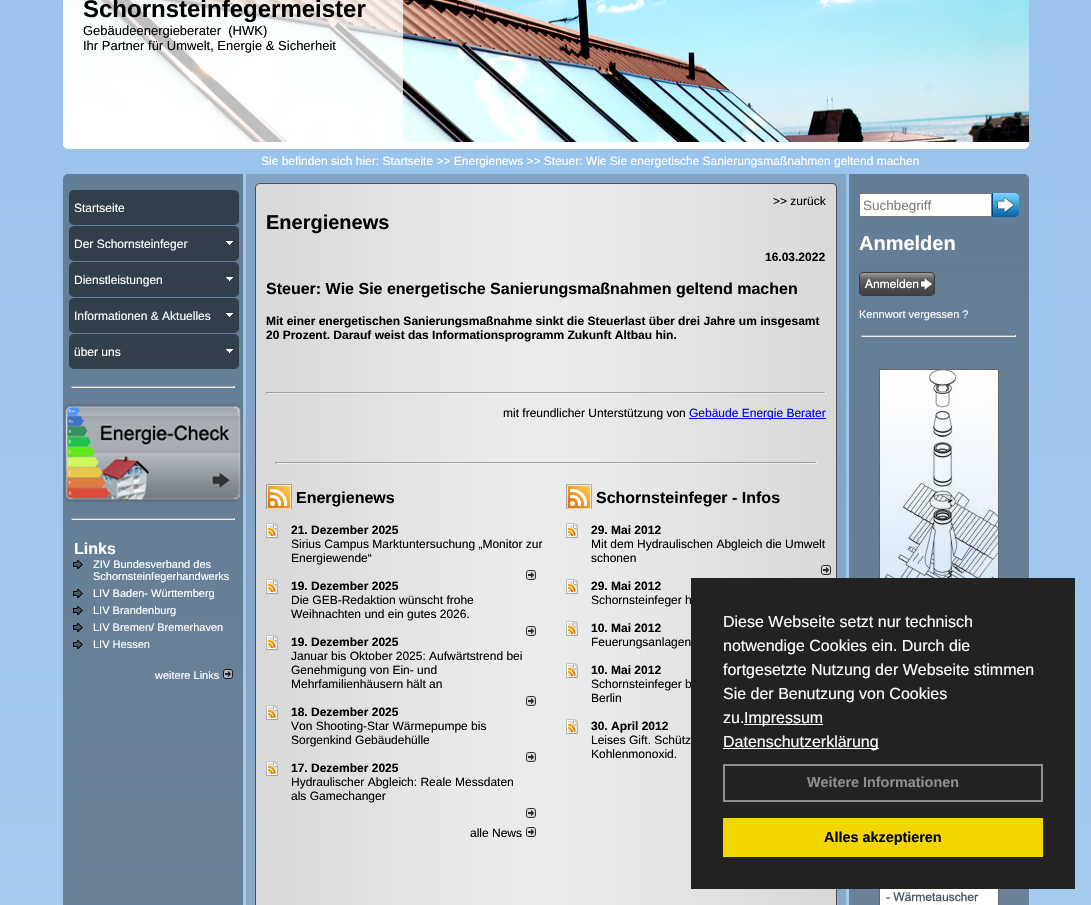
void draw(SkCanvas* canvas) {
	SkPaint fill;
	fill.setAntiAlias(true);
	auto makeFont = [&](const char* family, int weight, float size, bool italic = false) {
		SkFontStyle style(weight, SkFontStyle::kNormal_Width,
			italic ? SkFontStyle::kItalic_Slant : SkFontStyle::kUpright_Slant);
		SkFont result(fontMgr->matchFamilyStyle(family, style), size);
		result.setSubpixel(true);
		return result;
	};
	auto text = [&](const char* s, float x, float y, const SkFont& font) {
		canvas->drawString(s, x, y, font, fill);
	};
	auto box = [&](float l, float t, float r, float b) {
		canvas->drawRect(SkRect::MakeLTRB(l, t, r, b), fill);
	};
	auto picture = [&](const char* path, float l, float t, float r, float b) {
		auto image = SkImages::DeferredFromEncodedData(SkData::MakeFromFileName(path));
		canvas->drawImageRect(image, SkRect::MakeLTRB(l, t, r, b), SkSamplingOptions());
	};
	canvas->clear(0xFFFFFFFF);
	picture("image0.png", 0, 0, 1091, 905);
	picture("image1.png", 63, 0, 1029, 142);
	fill.setColor(0xBFFFFFFF);
	box(63, 0, 403, 142);
	picture("image2.png", 63, 142, 1029, 149);
	picture("image3.png", 63, 174, 243, 189);
	picture("image4.png", 246, 174, 846, 189);
	picture("image5.png", 849, 174, 1029, 189);
	fill.setColor(0x5C000000);
	box(63, 189, 243, 905);
	picture("image6.png", 69, 190, 239, 225);
	picture("image7.png", 69, 226, 239, 261);
	picture("image8.png", 226, 241, 233, 245);
	picture("image9.png", 69, 262, 239, 297);
	picture("image10.png", 226, 277, 233, 281);
	picture("image11.png", 69, 298, 239, 333);
	picture("image12.png", 226, 313, 233, 317);
	picture("image13.png", 69, 334, 239, 369);
	picture("image12.png", 226, 349, 233, 353);
	fill.setColor(0xFF9F9F9F);
	box(71, 386, 235, 387);
	fill.setColor(0xFFEEEEEE);
	box(234, 386, 235, 388);
	box(71, 387, 235, 388);
	fill.setColor(0xFF9F9F9F);
	box(71, 386, 72, 388);
	picture("image14.png", 63, 403, 243, 503);
	box(71, 518, 235, 519);
	fill.setColor(0xFFEEEEEE);
	box(234, 518, 235, 520);
	box(71, 519, 235, 520);
	fill.setColor(0xFF9F9F9F);
	box(71, 518, 72, 520);
	picture("image15.png", 73, 560, 83, 569);
	picture("image16.png", 73, 589, 83, 598);
	picture("image17.png", 73, 606, 83, 615);
	picture("image18.png", 73, 623, 83, 632);
	picture("image19.png", 73, 640, 83, 649);
	picture("image20.png", 223, 669, 233, 679);
	picture("image21.png", 246, 189, 846, 905);
	box(266, 392, 826, 393);
	fill.setColor(0xFFEEEEEE);
	box(825, 392, 826, 394);
	box(266, 393, 826, 394);
	fill.setColor(0xFF9F9F9F);
	box(266, 392, 267, 394);
	fill.setColor(0xFF0000EE);
	box(689, 418, 826, 419);
	fill.setColor(0xFF9F9F9F);
	box(275, 462, 817, 463);
	fill.setColor(0xFFEEEEEE);
	box(816, 462, 817, 464);
	box(275, 463, 817, 464);
	fill.setColor(0xFF9F9F9F);
	box(275, 462, 276, 464);
	picture("image22.png", 266, 484, 292, 509);
	picture("image23.png", 266, 523, 278, 538);
	picture("image24.png", 526, 570, 536, 580);
	picture("image23.png", 266, 579, 278, 594);
	picture("image24.png", 526, 626, 536, 636);
	picture("image23.png", 266, 635, 278, 650);
	picture("image24.png", 526, 696, 536, 706);
	picture("image23.png", 266, 705, 278, 720);
	picture("image24.png", 526, 752, 536, 762);
	picture("image23.png", 266, 761, 278, 776);
	picture("image24.png", 526, 808, 536, 818);
	picture("image24.png", 526, 827, 536, 837);
	picture("image25.png", 566, 484, 592, 509);
	picture("image26.png", 566, 523, 578, 538);
	picture("image27.png", 821, 565, 831, 575);
	picture("image26.png", 566, 579, 578, 594);
	picture("image26.png", 566, 621, 578, 636);
	picture("image26.png", 566, 663, 578, 678);
	picture("image26.png", 566, 719, 578, 734);
	fill.setColor(0x5C000000);
	box(849, 189, 1029, 905);
	fill.setColor(0xFFFFFFFF);
	canvas->drawRoundRect(SkRect::MakeLTRB(859.5f, 193.5f, 991.5f, 216.5f), 1.5f, 1.5f, fill);
	fill.setStyle(SkPaint::kStroke_Style);
	fill.setStrokeWidth(1);
	fill.setColor(0xFF767676);
	canvas->drawRoundRect(SkRect::MakeLTRB(859.5f, 193.5f, 991.5f, 216.5f), 1.5f, 1.5f, fill);
	picture("image28.png", 992, 193, 1019, 217);
	picture("image29.png", 859, 272, 935, 296);
	fill.setStyle(SkPaint::kFill_Style);
	fill.setColor(0xFF9F9F9F);
	box(861, 335, 1016, 336);
	fill.setColor(0xFFEEEEEE);
	box(1015, 335, 1016, 337);
	box(861, 336, 1016, 337);
	fill.setColor(0xFF9F9F9F);
	box(861, 335, 862, 337);
	picture("image30.png", 879, 369, 999, 905);
	fill.setColor(0xFF222222);
	box(691, 578, 1075, 889);
	fill.setColor(0xFFFFFFFF);
	box(744, 724, 823, 725);
	box(723, 748, 879, 749);
	fill.setStyle(SkPaint::kStroke_Style);
	fill.setStrokeWidth(2);
	fill.setColor(0xFF8F8F8F);
	canvas->drawRect(SkRect::MakeLTRB(724, 765, 1042, 801), fill);
	fill.setStyle(SkPaint::kFill_Style);
	fill.setColor(0xFFF1D600);
	box(723, 818, 1043, 857);
	auto font1 = makeFont("Liberation Sans", 700, 24);
	fill.setColor(0xFF000000);
	text("Schornsteinfegermeister", 83, 17, font1);
	auto font2 = makeFont("Liberation Sans", 400, 13);
	text("Gebäudeenergieberater  (HWK)", 83, 35, font2);
	text("Ihr Partner für Umwelt, Energie & Sicherheit", 83, 50, font2);
	auto font3 = makeFont("Liberation Sans", 400, 12);
	fill.setColor(0xFFFFFFFF);
	text("Sie befinden sich hier: Startseite >> Energienews >> Steuer: Wie Sie energetische Sanierungsmaßnahmen geltend machen", 261, 165, font3);
	text("Startseite", 74, 212, font3);
	text("Der Schornsteinfeger", 74, 248, font3);
	text("Dienstleistungen", 74, 284, font3);
	text("Informationen & Aktuelles", 74, 320, font3);
	text("über uns", 74, 356, font3);
	auto font4 = makeFont("Liberation Sans", 700, 16);
	text("Links", 74, 554, font4);
	auto font5 = makeFont("Liberation Sans", 400, 11);
	text("ZIV Bundesverband des", 93, 568, font5);
	text("Schornsteinfegerhandwerks", 93, 580, font5);
	text("LIV Baden- Württemberg", 93, 597, font5);
	text("LIV Brandenburg", 93, 614, font5);
	text("LIV Bremen/ Bremerhaven", 93, 631, font5);
	text("LIV Hessen", 93, 648, font5);
	text("weitere Links", 155, 679, font5);
	fill.setColor(0xFF000000);
	text(">> zurück", 773, 205, font3);
	auto font6 = makeFont("Liberation Sans", 700, 20);
	text("Energienews", 266, 229, font6);
	auto font7 = makeFont("Liberation Sans", 700, 12);
	text("16.03.2022", 765, 261, font7);
	text("Steuer: Wie Sie energetische Sanierungsmaßnahmen geltend machen", 266, 294, font4);
	text("Mit einer energetischen Sanierungsmaßnahme sinkt die Steuerlast über drei Jahre um insgesamt", 266, 325, font7);
	text("20 Prozent. Darauf weist das Informationsprogramm Zukunft Altbau hin.", 266, 339, font7);
	text("mit freundlicher Unterstützung von", 503, 417, font3);
	fill.setColor(0xFF0000EE);
	text("Gebäude Energie Berater", 689, 417, font3);
	fill.setColor(0xFF000000);
	text("Energienews", 296, 503, font4);
	text("21. Dezember 2025", 291, 534, font7);
	text("Sirius Campus Marktuntersuchung „Monitor zur", 291, 548, font3);
	text("Energiewende“", 291, 562, font3);
	text("19. Dezember 2025", 291, 590, font7);
	text("Die GEB-Redaktion wünscht frohe", 291, 604, font3);
	text("Weihnachten und ein gutes 2026.", 291, 618, font3);
	text("19. Dezember 2025", 291, 646, font7);
	text("Januar bis Oktober 2025: Aufwärtstrend bei", 291, 660, font3);
	text("Genehmigung von Ein- und", 291, 674, font3);
	text("Mehrfamilienhäusern hält an", 291, 688, font3);
	text("18. Dezember 2025", 291, 716, font7);
	text("Von Shooting-Star Wärmepumpe bis", 291, 730, font3);
	text("Sorgenkind Gebäudehülle", 291, 744, font3);
	text("17. Dezember 2025", 291, 772, font7);
	text("Hydraulischer Abgleich: Reale Messdaten", 291, 786, font3);
	text("als Gamechanger", 291, 800, font3);
	text("alle News", 470, 837, font3);
	text("Schornsteinfeger - Infos", 596, 503, font4);
	text("29. Mai 2012", 591, 534, font7);
	text("Mit dem Hydraulischen Abgleich die Umwelt", 591, 548, font3);
	text("schonen", 591, 562, font3);
	text("29. Mai 2012", 591, 590, font7);
	text("Schornsteinfeger h", 591, 604, font3);
	text("10. Mai 2012", 591, 632, font7);
	text("Feuerungsanlagen", 591, 646, font3);
	text("10. Mai 2012", 591, 674, font7);
	text("Schornsteinfeger b", 591, 688, font3);
	text("Berlin", 591, 702, font3);
	text("30. April 2012", 591, 730, font7);
	text("Leises Gift. Schütz", 591, 744, font3);
	text("Kohlenmonoxid.", 591, 758, font3);
	auto font8 = makeFont("Liberation Sans", 400, 13.5f);
	fill.setColor(0xFF808080);
	text("Suchbegriff", 863, 210, font8);
	fill.setColor(0xFFFFFFFF);
	text("Anmelden", 859, 250, font6);
	text("Kennwort vergessen ?", 859, 318, font5);
	auto font9 = makeFont("Liberation Sans", 400, 16);
	text("Diese Webseite setzt nur technisch", 723, 627, font9);
	text("notwendige Cookies ein. Durch die", 723, 651, font9);
	text("fortgesetzte Nutzung der Webseite stimmen", 723, 675, font9);
	text("Sie der Benutzung von Cookies", 723, 699, font9);
	text("zu.", 723, 723, font9);
	text("Impressum", 744, 723, font9);
	text("Datenschutzerklärung", 723, 747, font9);
	auto font10 = makeFont("Liberation Sans", 700, 14.4f);
	fill.setColor(0xFF8F8F8F);
	text("Weitere Informationen", 807, 787, font10);
	fill.setColor(0xFF000000);
	text("Alles akzeptieren", 824, 842, font10);
}
